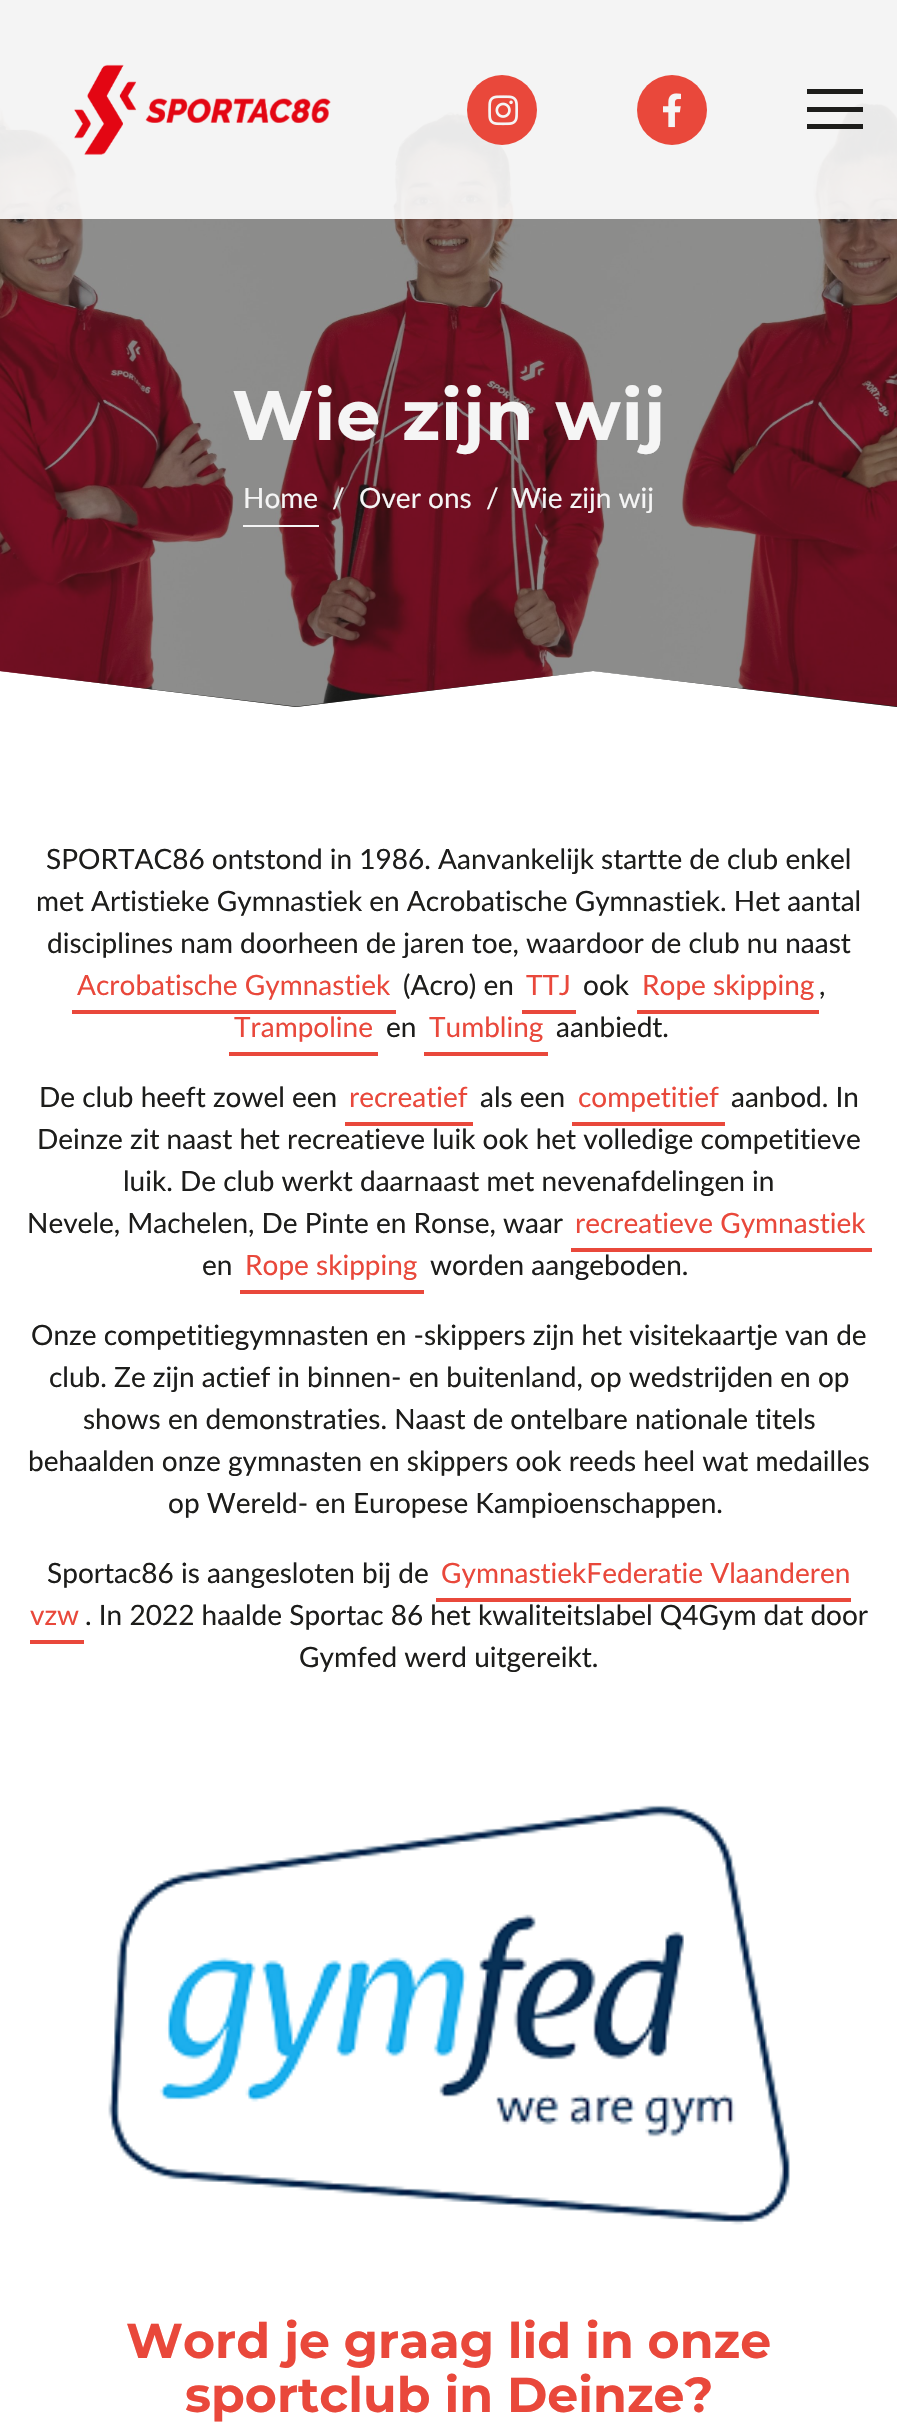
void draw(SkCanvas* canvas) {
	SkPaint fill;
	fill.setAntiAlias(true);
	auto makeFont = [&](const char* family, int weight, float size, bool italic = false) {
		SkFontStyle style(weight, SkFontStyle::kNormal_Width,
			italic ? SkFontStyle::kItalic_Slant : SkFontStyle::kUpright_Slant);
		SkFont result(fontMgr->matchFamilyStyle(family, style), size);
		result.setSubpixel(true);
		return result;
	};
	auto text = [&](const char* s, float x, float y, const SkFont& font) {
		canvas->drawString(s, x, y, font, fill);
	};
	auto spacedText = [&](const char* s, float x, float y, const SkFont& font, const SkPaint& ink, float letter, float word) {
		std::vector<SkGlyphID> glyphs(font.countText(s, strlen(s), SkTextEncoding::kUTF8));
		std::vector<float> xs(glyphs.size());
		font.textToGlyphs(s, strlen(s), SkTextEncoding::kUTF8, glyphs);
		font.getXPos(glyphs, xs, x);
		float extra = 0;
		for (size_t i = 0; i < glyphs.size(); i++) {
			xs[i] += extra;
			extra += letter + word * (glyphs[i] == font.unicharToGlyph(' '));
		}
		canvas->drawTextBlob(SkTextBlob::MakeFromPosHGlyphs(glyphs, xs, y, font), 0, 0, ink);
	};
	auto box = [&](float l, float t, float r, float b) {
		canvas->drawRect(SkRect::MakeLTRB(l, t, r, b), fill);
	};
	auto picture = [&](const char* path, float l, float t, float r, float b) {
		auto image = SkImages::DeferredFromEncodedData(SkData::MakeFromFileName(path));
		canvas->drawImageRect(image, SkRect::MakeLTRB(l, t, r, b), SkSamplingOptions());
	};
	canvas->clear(0xFFFFFFFF);
	fill.setColor(0xFF1D1D1B);
	canvas->drawPath(SkPathBuilder().moveTo(0, 0).lineTo(0, 671).lineTo(296, 707).lineTo(593, 671).lineTo(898, 707).lineTo(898, 0).close().detach(), fill);
	fill.setColor(0x801D1D1B);
	canvas->drawPath(SkPathBuilder().moveTo(0, 0).lineTo(0, 671).lineTo(296, 707).lineTo(593, 671).lineTo(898, 707).lineTo(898, 0).close().detach(), fill);
	picture("image3.png", 0, 0, 897, 707);
	fill.setColor(0xE6FFFFFF);
	box(0, 0, 897, 219);
	picture("image0.png", 74, 64, 331, 155);
	fill.setColor(0xFFE9483B);
	canvas->drawCircle(502, 110, 35, fill);
	picture("image1.png", 488, 95, 518, 126);
	canvas->drawCircle(672, 110, 35, fill);
	picture("image2.png", 663, 93, 681, 128);
	fill.setColor(0xFF1D1D1B);
	box(807, 89, 863, 94);
	box(807, 107, 863, 112);
	box(807, 124, 863, 129);
	fill.setColor(0xFFF5F5F5);
	box(243, 525, 319, 527);
	fill.setColor(0xFFE9483B);
	box(72, 1010, 396, 1014);
	box(522, 1010, 576, 1014);
	box(637, 1010, 819, 1014);
	box(229, 1052, 378, 1056);
	box(424, 1052, 548, 1056);
	box(345, 1122, 473, 1126);
	box(572, 1122, 725, 1126);
	box(571, 1248, 872, 1252);
	box(240, 1290, 424, 1294);
	box(436, 1598, 851, 1602);
	box(30, 1640, 84, 1644);
	picture("image4.png", 108, 1805, 790, 2225);
	auto font1 = makeFont("Montserrat", 700, 70);
	fill.setColor(0xFFF5F5F5);
	spacedText("Wie zijn wij", 232, 440, font1, fill, 0.9f, 0);
	auto font2 = makeFont("Lato", 400, 28);
	text("Home", 243, 508, font2);
	text("/", 332, 508, font2);
	text("Over ons", 359, 508, font2);
	text("/", 486, 508, font2);
	text("Wie zijn wij", 512, 508, font2);
	fill.setColor(0xFF1D1D1B);
	text("SPORTAC86 ontstond in 1986. Aanvankelijk startte de club enkel", 46, 869, font2);
	text("met Artistieke Gymnastiek en Acrobatische Gymnastiek. Het aantal", 36, 911, font2);
	text("disciplines nam doorheen de jaren toe, waardoor de club nu naast", 47, 953, font2);
	fill.setColor(0xFFE9483B);
	text("Acrobatische Gymnastiek", 77, 995, font2);
	fill.setColor(0xFF1D1D1B);
	text("(Acro) en", 403, 995, font2);
	fill.setColor(0xFFE9483B);
	text("TTJ", 526, 995, font2);
	fill.setColor(0xFF1D1D1B);
	text("ook", 583, 995, font2);
	fill.setColor(0xFFE9483B);
	text("Rope skipping", 642, 995, font2);
	fill.setColor(0xFF1D1D1B);
	text(",", 819, 995, font2);
	fill.setColor(0xFFE9483B);
	text("Trampoline", 234, 1037, font2);
	fill.setColor(0xFF1D1D1B);
	text("en", 386, 1037, font2);
	fill.setColor(0xFFE9483B);
	text("Tumbling", 429, 1037, font2);
	fill.setColor(0xFF1D1D1B);
	text("aanbiedt.", 556, 1037, font2);
	text("De club heeft zowel een", 39, 1107, font2);
	fill.setColor(0xFFE9483B);
	text("recreatief", 349, 1107, font2);
	fill.setColor(0xFF1D1D1B);
	text("als een", 480, 1107, font2);
	fill.setColor(0xFFE9483B);
	text("competitief", 578, 1107, font2);
	fill.setColor(0xFF1D1D1B);
	text("aanbod. In", 731, 1107, font2);
	text("Deinze zit naast het recreatieve luik ook het volledige competitieve", 37, 1149, font2);
	text("luik. De club werkt daarnaast met nevenafdelingen in", 123, 1191, font2);
	text("Nevele, Machelen, De Pinte en Ronse, waar", 27, 1233, font2);
	fill.setColor(0xFFE9483B);
	text("recreatieve Gymnastiek", 575, 1233, font2);
	fill.setColor(0xFF1D1D1B);
	text("en", 202, 1275, font2);
	fill.setColor(0xFFE9483B);
	text("Rope skipping", 245, 1275, font2);
	fill.setColor(0xFF1D1D1B);
	text("worden aangeboden.", 430, 1275, font2);
	text("Onze competitiegymnasten en -skippers zijn het visitekaartje van de", 31, 1345, font2);
	text("club. Ze zijn actief in binnen- en buitenland, op wedstrijden en op", 49, 1387, font2);
	text("shows en demonstraties. Naast de ontelbare nationale titels", 83, 1429, font2);
	text("behaalden onze gymnasten en skippers ook reeds heel wat medailles", 28, 1471, font2);
	text("op Wereld- en Europese Kampioenschappen.", 168, 1513, font2);
	text("Sportac86 is aangesloten bij de", 47, 1583, font2);
	fill.setColor(0xFFE9483B);
	text("GymnastiekFederatie Vlaanderen", 441, 1583, font2);
	text("vzw", 30, 1625, font2);
	fill.setColor(0xFF1D1D1B);
	text(". In 2022 haalde Sportac 86 het kwaliteitslabel Q4Gym dat door", 85, 1625, font2);
	text("Gymfed werd uitgereikt.", 299, 1667, font2);
	auto font3 = makeFont("Montserrat", 700, 49);
	fill.setColor(0xFFE9483B);
	text("Word je graag lid in onze", 126, 2358, font3);
	text("sportclub in Deinze?", 185, 2412, font3);
}
